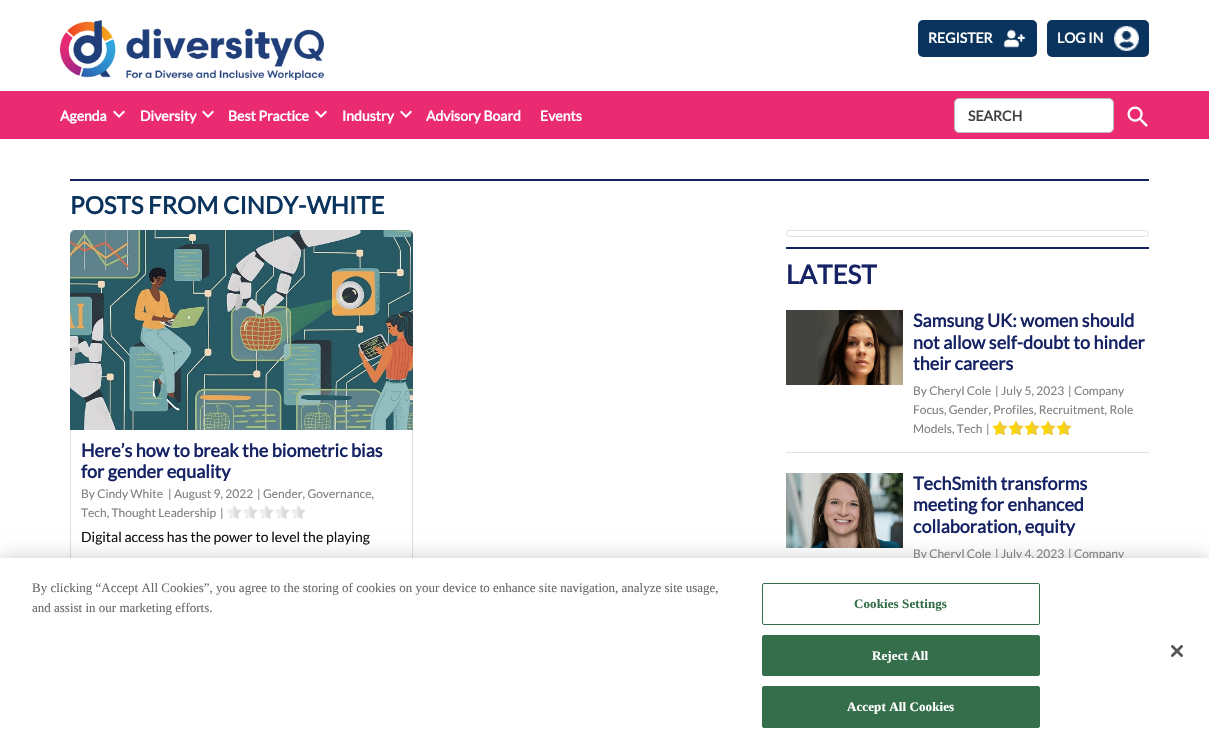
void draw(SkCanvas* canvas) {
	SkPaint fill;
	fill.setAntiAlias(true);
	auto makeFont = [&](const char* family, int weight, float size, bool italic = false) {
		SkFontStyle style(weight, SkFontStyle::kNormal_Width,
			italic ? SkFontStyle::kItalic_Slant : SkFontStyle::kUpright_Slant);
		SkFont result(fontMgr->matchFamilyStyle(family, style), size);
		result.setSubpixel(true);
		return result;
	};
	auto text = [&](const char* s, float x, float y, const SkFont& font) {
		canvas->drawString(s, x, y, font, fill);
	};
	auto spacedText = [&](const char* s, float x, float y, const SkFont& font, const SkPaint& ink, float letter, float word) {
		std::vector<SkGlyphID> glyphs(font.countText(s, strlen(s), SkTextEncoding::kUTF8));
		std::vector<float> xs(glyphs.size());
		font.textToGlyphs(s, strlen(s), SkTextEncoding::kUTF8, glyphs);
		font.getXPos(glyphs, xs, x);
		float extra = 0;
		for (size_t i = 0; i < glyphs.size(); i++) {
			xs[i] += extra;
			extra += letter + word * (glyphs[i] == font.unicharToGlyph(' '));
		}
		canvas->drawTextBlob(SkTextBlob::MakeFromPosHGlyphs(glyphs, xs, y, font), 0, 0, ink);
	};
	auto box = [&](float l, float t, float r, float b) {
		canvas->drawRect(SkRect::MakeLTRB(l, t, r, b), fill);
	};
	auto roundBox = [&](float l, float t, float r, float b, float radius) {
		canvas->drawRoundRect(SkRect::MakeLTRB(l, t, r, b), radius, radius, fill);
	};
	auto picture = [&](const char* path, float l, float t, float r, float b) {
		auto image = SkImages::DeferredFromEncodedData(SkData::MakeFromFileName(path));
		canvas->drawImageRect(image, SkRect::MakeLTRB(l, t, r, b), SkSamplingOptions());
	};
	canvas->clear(0xFFFFFFFF);
	picture("image0.png", 60, 20, 324, 80);
	fill.setColor(0xFF0A345E);
	roundBox(918, 20, 1037, 57, 5);
	picture("image1.png", 1003, 29, 1026, 48);
	roundBox(1047, 20, 1149, 57, 5);
	picture("image2.png", 1114, 26, 1139, 51);
	fill.setColor(0xFFEA2A71);
	box(0, 91, 60, 139);
	box(60, 91, 1209, 139);
	picture("image3.png", 113, 110, 125, 118);
	picture("image3.png", 202, 110, 214, 118);
	picture("image3.png", 315, 110, 327, 118);
	picture("image3.png", 400, 110, 412, 118);
	fill.setColor(0xFFFFFFFF);
	canvas->drawRoundRect(SkRect::MakeLTRB(954.5f, 98.5f, 1113.5f, 132.5f), 4.5f, 4.5f, fill);
	fill.setStyle(SkPaint::kStroke_Style);
	fill.setStrokeWidth(1);
	fill.setColor(0xFFBBBBBB);
	canvas->drawRoundRect(SkRect::MakeLTRB(954.5f, 98.5f, 1113.5f, 132.5f), 4.5f, 4.5f, fill);
	picture("image4.png", 1127, 106, 1148, 127);
	fill.setStyle(SkPaint::kFill_Style);
	fill.setColor(0xFF152264);
	box(70, 179, 1149, 181);
	picture("image5.png", 70, 230, 413, 430);
	fill.setColor(0xFFE0E0E0);
	canvas->drawPath(SkPathBuilder(SkPathFillType::kEvenOdd).moveTo(70, 430).lineTo(413, 430).lineTo(413, 577).cubicTo(413, 580, 411, 582, 408, 582).lineTo(75, 582).cubicTo(72, 582, 70, 580, 70, 577).close().moveTo(71, 430).lineTo(412, 430).lineTo(412, 577).cubicTo(412, 579, 410, 581, 408, 581).lineTo(75, 581).cubicTo(73, 581, 71, 579, 71, 577).close().detach(), fill);
	picture("image6.png", 226, 505, 306, 519);
	fill.setStyle(SkPaint::kStroke_Style);
	canvas->drawRoundRect(SkRect::MakeLTRB(786.5f, 230.5f, 1148.5f, 236.5f), 3, 3, fill);
	fill.setStyle(SkPaint::kFill_Style);
	fill.setColor(0xFF152264);
	box(786, 247, 1149, 249);
	fill.setColor(0xFFE0E0E0);
	box(786, 452, 1149, 453);
	picture("image7.png", 786, 310, 903, 385);
	picture("image6.png", 992, 421, 1072, 435);
	picture("image8.png", 992, 421, 1072, 436);
	picture("image9.png", 786, 473, 903, 548);
	fill.setColor(0x33000000);
	fill.setMaskFilter(SkMaskFilter::MakeBlur(kNormal_SkBlurStyle, 9));
	canvas->drawRect(SkRect::MakeLTRB(0, 558, 1209, 748), fill);
	fill.setMaskFilter(nullptr);
	auto font1 = makeFont("Lato", 700, 14);
	fill.setColor(0xFFFFFFFF);
	text("REGISTER", 928, 43, font1);
	text("LOG IN", 1057, 43, font1);
	text("Agenda", 60, 121, font1);
	text("Diversity", 140, 121, font1);
	text("Best Practice", 228, 121, font1);
	text("Industry", 342, 121, font1);
	text("Advisory Board", 426, 121, font1);
	text("Events", 540, 121, font1);
	fill.setColor(0xFF424242);
	text("SEARCH", 968, 121, font1);
	auto font2 = makeFont("Lato", 700, 24);
	fill.setColor(0xFF0A345E);
	text("POSTS FROM CINDY-WHITE", 70, 214, font2);
	auto font3 = makeFont("Lato", 700, 18);
	fill.setColor(0xFF152264);
	text("Here’s how to break the biometric bias", 81, 457, font3);
	text("for gender equality", 81, 478, font3);
	auto font4 = makeFont("Lato", 400, 12);
	fill.setColor(0xFF808080);
	text("By Cindy White", 81, 498, font4);
	text("| August 9, 2022", 168, 498, font4);
	text("| Gender, Governance,", 257, 498, font4);
	text("Tech, Thought Leadership", 81, 517, font4);
	text("|", 220, 517, font4);
	auto font5 = makeFont("Lato", 400, 14);
	fill.setColor(0xFF111111);
	text("Digital access has the power to level the playing", 81, 542, font5);
	auto font6 = makeFont("Lato", 700, 26);
	fill.setColor(0xFF152264);
	text("LATEST", 786, 284, font6);
	text("Samsung UK: women should", 913, 327, font3);
	text("not allow self-doubt to hinder", 913, 349, font3);
	text("their careers", 913, 370, font3);
	fill.setColor(0xFF808080);
	text("By Cheryl Cole", 913, 395, font4);
	text("| July 5, 2023", 995, 395, font4);
	text("| Company", 1068, 395, font4);
	text("Focus, Gender, Profiles, Recruitment, Role", 913, 414, font4);
	text("Models, Tech", 913, 433, font4);
	text("|", 986, 433, font4);
	fill.setColor(0xFF152264);
	text("TechSmith transforms", 913, 490, font3);
	text("meeting for enhanced", 913, 511, font3);
	text("collaboration, equity", 913, 533, font3);
	fill.setColor(0xFF808080);
	text("By Cheryl Cole", 913, 558, font4);
	text("| July 4, 2023", 995, 558, font4);
	text("| Company", 1068, 558, font4);
	fill.setColor(0xFFFFFFFF);
	box(0, 558, 1209, 748);
	auto font7 = makeFont("Liberation Serif", 400, 13);
	fill.setColor(0xFF696969);
	text("By clicking “Accept All Cookies”, you agree to the storing of cookies on your device to enhance site navigation, analyze site usage,", 32, 592, font7);
	text("and assist in our marketing efforts.", 32, 612, font7);
	fill.setStyle(SkPaint::kStroke_Style);
	fill.setColor(0xFF346E4A);
	canvas->drawRoundRect(SkRect::MakeLTRB(762.5f, 583.5f, 1039.5f, 624.5f), 1.5f, 1.5f, fill);
	auto font8 = makeFont("Liberation Serif", 700, 13);
	fill.setStyle(SkPaint::kFill_Style);
	spacedText("Cookies Settings", 854, 608, font8, fill, 0.1f, 0);
	canvas->drawRoundRect(SkRect::MakeLTRB(762.5f, 635.5f, 1039.5f, 675.5f), 1.5f, 1.5f, fill);
	fill.setStyle(SkPaint::kStroke_Style);
	canvas->drawRoundRect(SkRect::MakeLTRB(762.5f, 635.5f, 1039.5f, 675.5f), 1.5f, 1.5f, fill);
	fill.setStyle(SkPaint::kFill_Style);
	fill.setColor(0xFFFFFFFF);
	spacedText("Reject All", 872, 660, font8, fill, 0.1f, 0);
	fill.setColor(0xFF346E4A);
	canvas->drawRoundRect(SkRect::MakeLTRB(762.5f, 686.5f, 1039.5f, 727.5f), 1.5f, 1.5f, fill);
	fill.setStyle(SkPaint::kStroke_Style);
	canvas->drawRoundRect(SkRect::MakeLTRB(762.5f, 686.5f, 1039.5f, 727.5f), 1.5f, 1.5f, fill);
	fill.setStyle(SkPaint::kFill_Style);
	fill.setColor(0xFFFFFFFF);
	spacedText("Accept All Cookies", 847, 711, font8, fill, 0.1f, 0);
	picture("image10.png", 1171, 645, 1183, 657);
}
